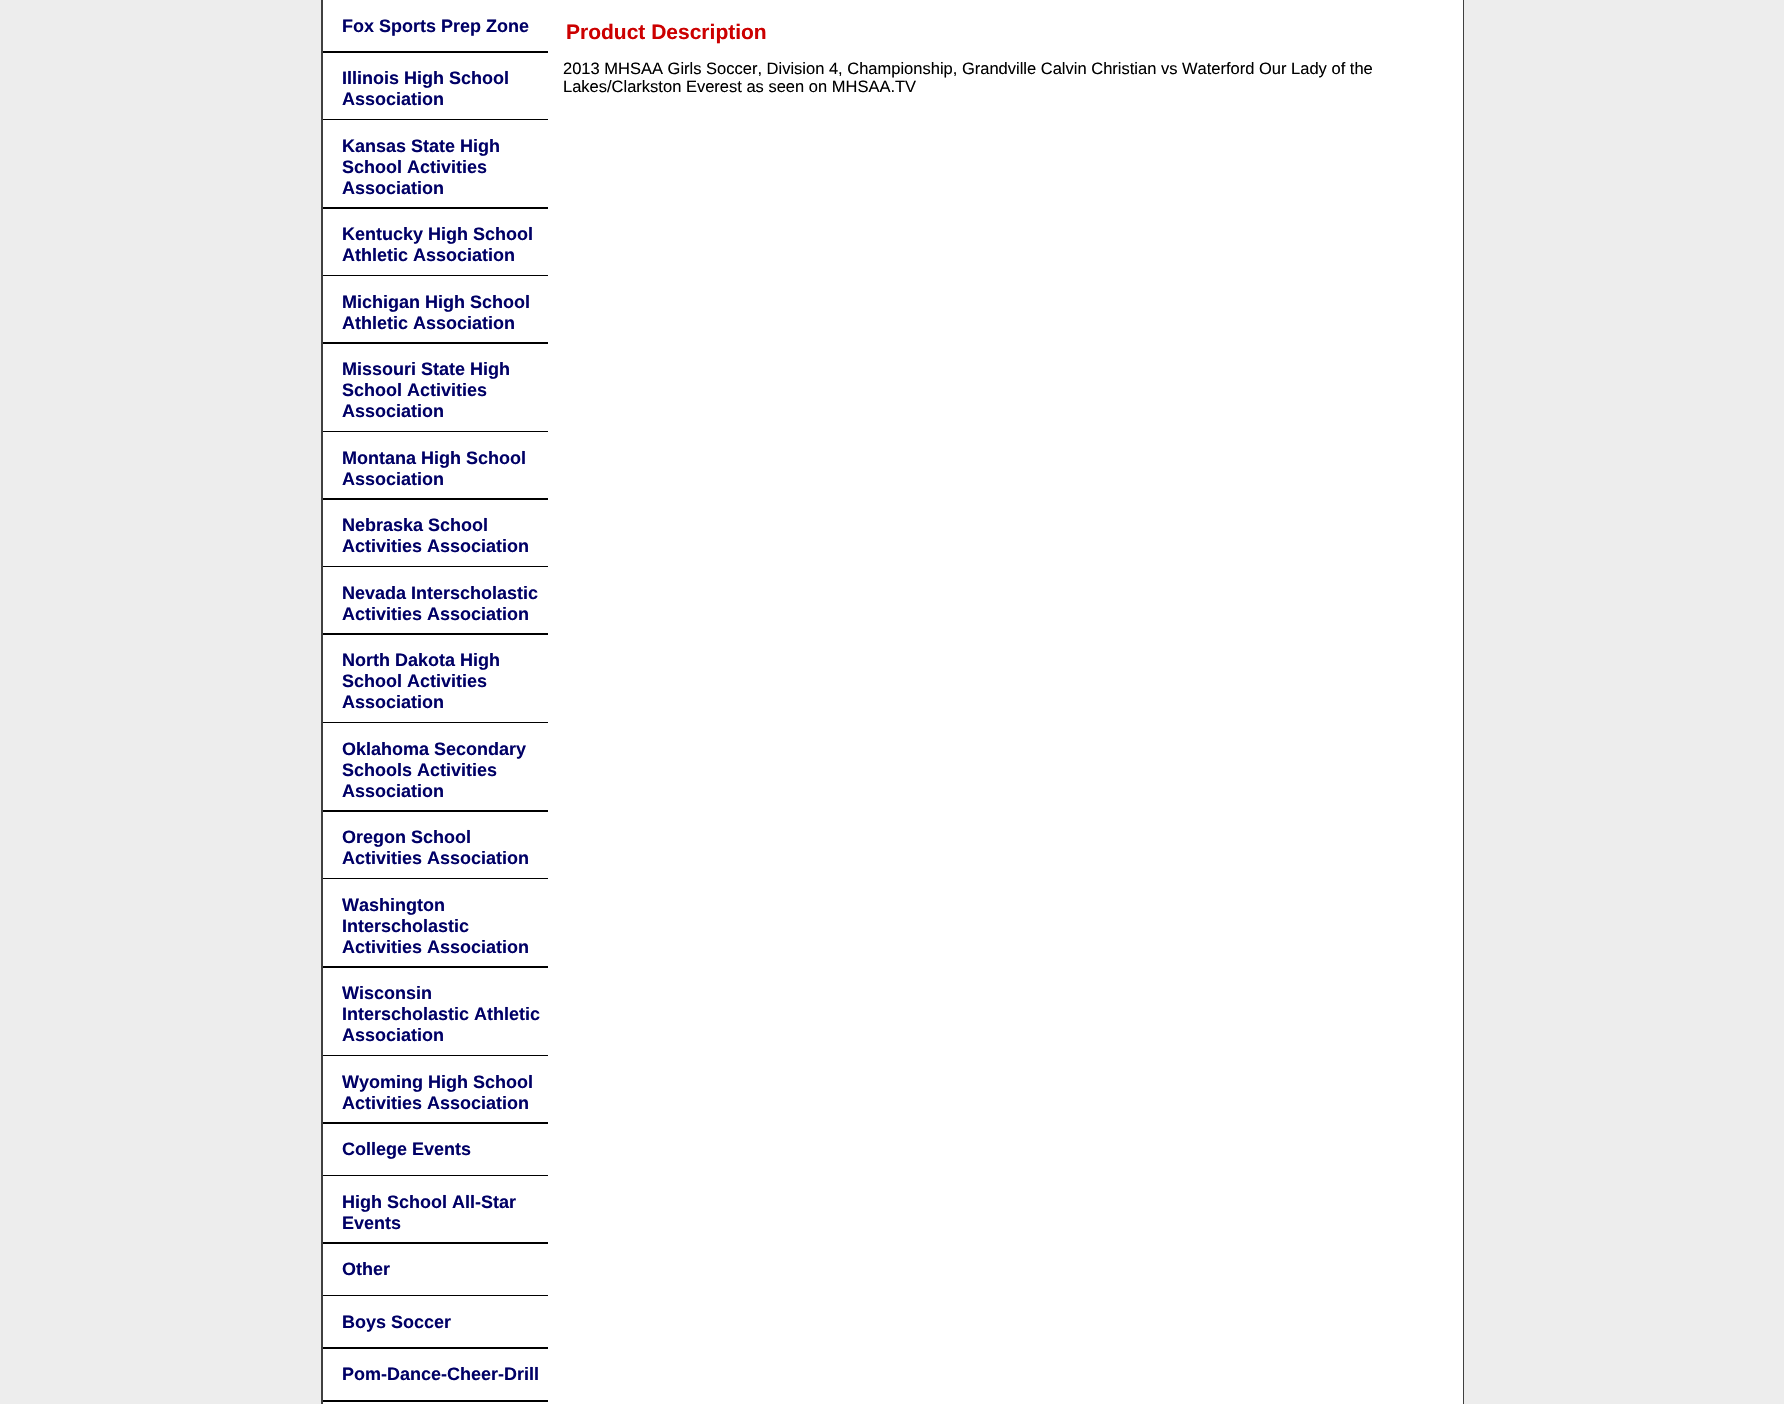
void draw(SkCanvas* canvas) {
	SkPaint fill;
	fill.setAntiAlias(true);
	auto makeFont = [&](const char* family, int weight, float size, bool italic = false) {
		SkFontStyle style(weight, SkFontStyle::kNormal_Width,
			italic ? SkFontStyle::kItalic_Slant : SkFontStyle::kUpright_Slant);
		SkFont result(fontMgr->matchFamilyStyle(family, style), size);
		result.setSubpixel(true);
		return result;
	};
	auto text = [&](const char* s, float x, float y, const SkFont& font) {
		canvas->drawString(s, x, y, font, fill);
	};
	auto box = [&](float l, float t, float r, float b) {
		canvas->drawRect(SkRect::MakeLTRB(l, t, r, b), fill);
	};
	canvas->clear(0xFFEDEDED);
	fill.setStyle(SkPaint::kStroke_Style);
	fill.setStrokeWidth(2);
	fill.setColor(0xFF404040);
	canvas->drawRect(SkRect::MakeLTRB(322, -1, 1463, 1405), fill);
	fill.setStyle(SkPaint::kFill_Style);
	fill.setColor(0xFFFFFFFF);
	box(323, 0, 1463, 1404);
	fill.setColor(0xFF000000);
	box(323, 51, 548, 53);
	box(323, 119, 548, 120);
	box(323, 207, 548, 209);
	box(323, 275, 548, 276);
	box(323, 342, 548, 344);
	box(323, 431, 548, 432);
	box(323, 498, 548, 500);
	box(323, 566, 548, 567);
	box(323, 633, 548, 635);
	box(323, 722, 548, 723);
	box(323, 810, 548, 812);
	box(323, 878, 548, 879);
	box(323, 966, 548, 968);
	box(323, 1055, 548, 1056);
	box(323, 1122, 548, 1124);
	box(323, 1175, 548, 1176);
	box(323, 1242, 548, 1244);
	box(323, 1295, 548, 1296);
	box(323, 1347, 548, 1349);
	box(323, 1400, 548, 1402);
	auto font1 = makeFont("Liberation Sans", 700, 18);
	fill.setColor(0xFF000066);
	text("Fox Sports Prep Zone", 342, 32, font1);
	text("Illinois High School", 342, 84, font1);
	text("Association", 342, 105, font1);
	text("Kansas State High", 342, 152, font1);
	text("School Activities", 342, 173, font1);
	text("Association", 342, 194, font1);
	text("Kentucky High School", 342, 240, font1);
	text("Athletic Association", 342, 261, font1);
	text("Michigan High School", 342, 308, font1);
	text("Athletic Association", 342, 329, font1);
	text("Missouri State High", 342, 375, font1);
	text("School Activities", 342, 396, font1);
	text("Association", 342, 417, font1);
	text("Montana High School", 342, 464, font1);
	text("Association", 342, 485, font1);
	text("Nebraska School", 342, 531, font1);
	text("Activities Association", 342, 552, font1);
	text("Nevada Interscholastic", 342, 599, font1);
	text("Activities Association", 342, 620, font1);
	text("North Dakota High", 342, 666, font1);
	text("School Activities", 342, 687, font1);
	text("Association", 342, 708, font1);
	text("Oklahoma Secondary", 342, 755, font1);
	text("Schools Activities", 342, 776, font1);
	text("Association", 342, 797, font1);
	text("Oregon School", 342, 843, font1);
	text("Activities Association", 342, 864, font1);
	text("Washington", 342, 911, font1);
	text("Interscholastic", 342, 932, font1);
	text("Activities Association", 342, 953, font1);
	text("Wisconsin", 342, 999, font1);
	text("Interscholastic Athletic", 342, 1020, font1);
	text("Association", 342, 1041, font1);
	text("Wyoming High School", 342, 1088, font1);
	text("Activities Association", 342, 1109, font1);
	text("College Events", 342, 1155, font1);
	text("High School All-Star", 342, 1208, font1);
	text("Events", 342, 1229, font1);
	text("Other", 342, 1275, font1);
	text("Boys Soccer", 342, 1328, font1);
	text("Pom-Dance-Cheer-Drill", 342, 1380, font1);
	auto font2 = makeFont("Liberation Sans", 700, 21);
	fill.setColor(0xFFCC0000);
	text("Product Description", 566, 39, font2);
	auto font3 = makeFont("Liberation Sans", 400, 16.5f);
	fill.setColor(0xFF000000);
	text("2013 MHSAA Girls Soccer, Division 4, Championship, Grandville Calvin Christian vs Waterford Our Lady of the", 563, 74, font3);
	text("Lakes/Clarkston Everest as seen on MHSAA.TV", 563, 92, font3);
}
